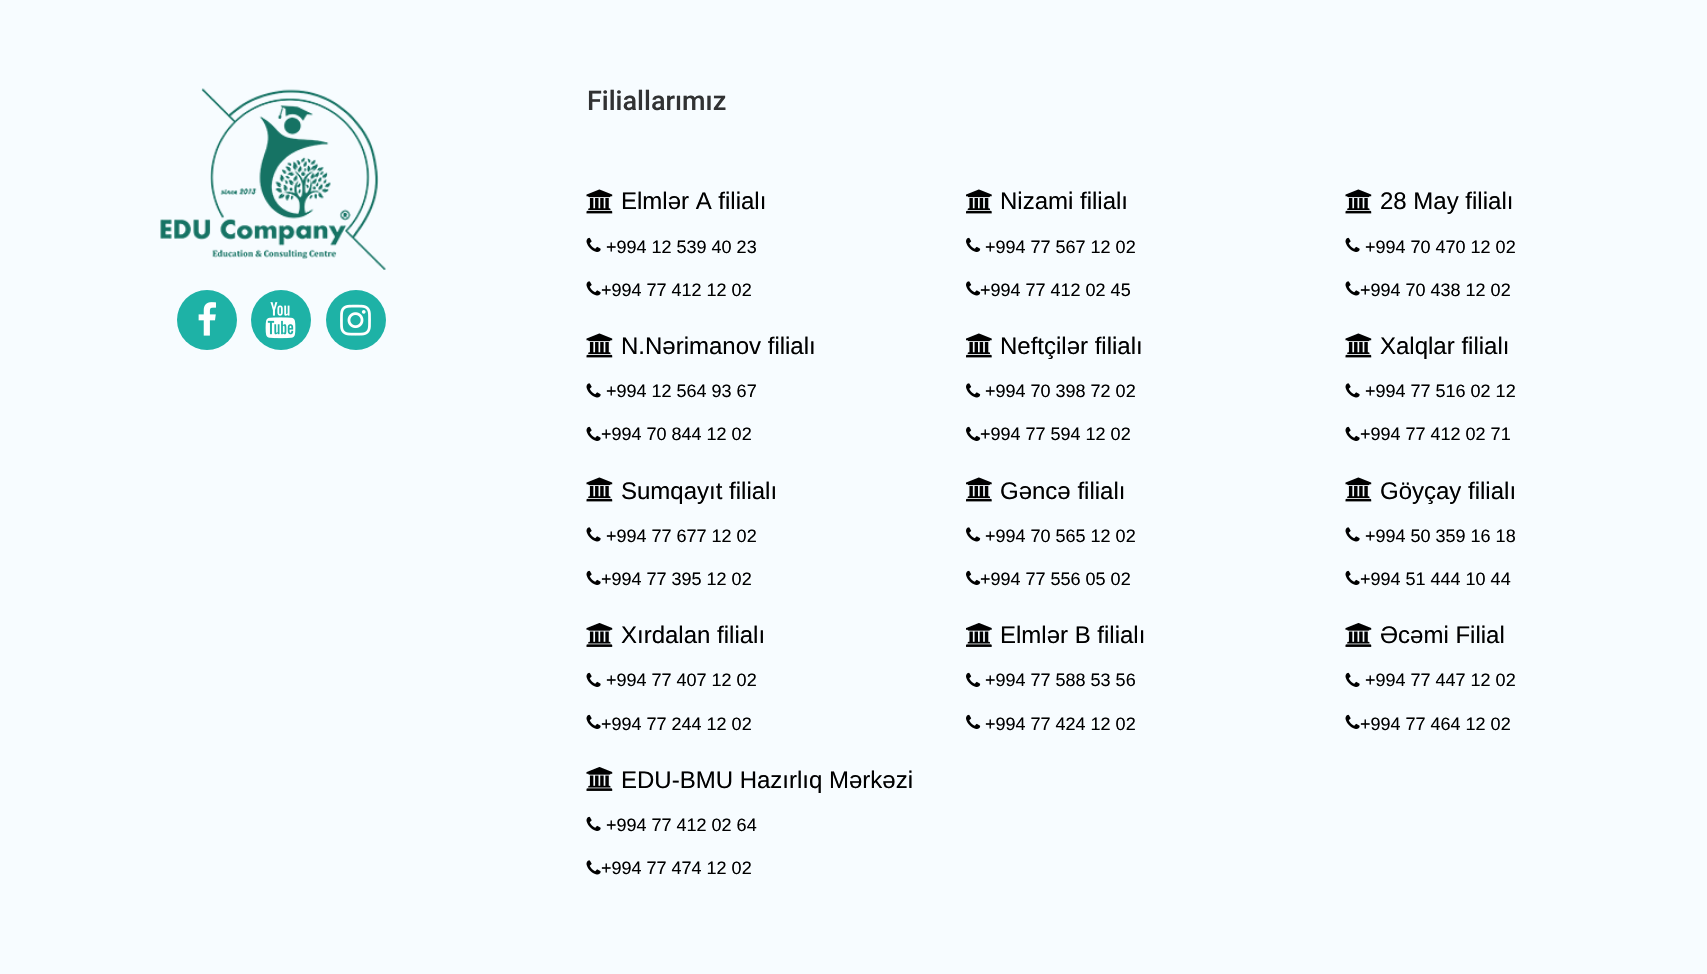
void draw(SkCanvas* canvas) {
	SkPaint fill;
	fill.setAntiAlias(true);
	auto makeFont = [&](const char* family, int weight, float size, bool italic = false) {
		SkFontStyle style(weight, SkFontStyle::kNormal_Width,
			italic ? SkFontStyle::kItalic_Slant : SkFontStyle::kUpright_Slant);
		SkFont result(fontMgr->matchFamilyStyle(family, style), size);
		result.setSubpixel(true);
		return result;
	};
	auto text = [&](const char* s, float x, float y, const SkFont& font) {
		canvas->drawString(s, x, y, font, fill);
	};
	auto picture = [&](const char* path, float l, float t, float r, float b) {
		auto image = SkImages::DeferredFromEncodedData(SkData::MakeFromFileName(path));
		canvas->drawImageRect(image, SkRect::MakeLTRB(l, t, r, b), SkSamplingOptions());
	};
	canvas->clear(0xFFF7FCFF);
	picture("image0.png", 160, 88, 386, 270);
	fill.setColor(0xFF1EB2A6);
	canvas->drawCircle(207, 320, 30, fill);
	picture("image1.png", 198, 302, 216, 336);
	canvas->drawCircle(281, 320, 30, fill);
	picture("image2.png", 265, 302, 296, 339);
	canvas->drawCircle(356, 320, 30, fill);
	picture("image3.png", 340, 304, 371, 336);
	picture("image4.png", 586, 189, 613, 214);
	picture("image5.png", 586, 237, 601, 252);
	picture("image6.png", 586, 281, 601, 296);
	picture("image7.png", 966, 189, 992, 214);
	picture("image8.png", 966, 237, 981, 252);
	picture("image9.png", 966, 281, 981, 296);
	picture("image4.png", 1345, 189, 1372, 214);
	picture("image5.png", 1345, 237, 1360, 252);
	picture("image6.png", 1345, 281, 1360, 296);
	picture("image4.png", 586, 333, 613, 358);
	picture("image6.png", 586, 383, 601, 398);
	picture("image5.png", 586, 426, 601, 441);
	picture("image7.png", 966, 333, 992, 358);
	picture("image9.png", 966, 383, 981, 398);
	picture("image8.png", 966, 426, 981, 441);
	picture("image4.png", 1345, 333, 1372, 358);
	picture("image6.png", 1345, 383, 1360, 398);
	picture("image5.png", 1345, 426, 1360, 441);
	picture("image4.png", 586, 477, 613, 502);
	picture("image6.png", 586, 527, 601, 542);
	picture("image5.png", 586, 570, 601, 585);
	picture("image7.png", 966, 477, 992, 502);
	picture("image9.png", 966, 527, 981, 542);
	picture("image8.png", 966, 570, 981, 585);
	picture("image4.png", 1345, 477, 1372, 502);
	picture("image6.png", 1345, 527, 1360, 542);
	picture("image5.png", 1345, 570, 1360, 585);
	picture("image10.png", 586, 623, 613, 647);
	picture("image5.png", 586, 672, 601, 687);
	picture("image5.png", 586, 714, 601, 729);
	picture("image11.png", 966, 623, 992, 647);
	picture("image8.png", 966, 672, 981, 687);
	picture("image8.png", 966, 714, 981, 729);
	picture("image10.png", 1345, 623, 1372, 647);
	picture("image5.png", 1345, 672, 1360, 687);
	picture("image5.png", 1345, 714, 1360, 729);
	picture("image10.png", 586, 767, 613, 791);
	picture("image5.png", 586, 816, 601, 831);
	picture("image6.png", 586, 860, 601, 875);
	auto font1 = makeFont("Roboto", 500, 27);
	fill.setColor(0xFF313233);
	text("Filiallarımız", 587, 110, font1);
	auto font2 = makeFont("Liberation Sans", 400, 24);
	fill.setColor(0xFF000000);
	text("Elmlər A filialı", 621, 209, font2);
	auto font3 = makeFont("Liberation Sans", 400, 18);
	text("+994 12 539 40 23", 606, 253, font3);
	text("+994 77 412 12 02", 601, 296, font3);
	text("Nizami filialı", 1000, 209, font2);
	text("+994 77 567 12 02", 985, 253, font3);
	text("+994 77 412 02 45", 980, 296, font3);
	text("28 May filialı", 1380, 209, font2);
	text("+994 70 470 12 02", 1365, 253, font3);
	text("+994 70 438 12 02", 1360, 296, font3);
	text("N.Nərimanov filialı", 621, 354, font2);
	text("+994 12 564 93 67", 606, 397, font3);
	text("+994 70 844 12 02", 601, 440, font3);
	text("Neftçilər filialı", 1000, 354, font2);
	text("+994 70 398 72 02", 985, 397, font3);
	text("+994 77 594 12 02", 980, 440, font3);
	text("Xalqlar filialı", 1380, 354, font2);
	text("+994 77 516 02 12", 1365, 397, font3);
	text("+994 77 412 02 71", 1360, 440, font3);
	text("Sumqayıt filialı", 621, 499, font2);
	text("+994 77 677 12 02", 606, 542, font3);
	text("+994 77 395 12 02", 601, 585, font3);
	text("Gəncə filialı", 1000, 499, font2);
	text("+994 70 565 12 02", 985, 542, font3);
	text("+994 77 556 05 02", 980, 585, font3);
	text("Göyçay filialı", 1380, 499, font2);
	text("+994 50 359 16 18", 1365, 542, font3);
	text("+994 51 444 10 44", 1360, 585, font3);
	text("Xırdalan filialı", 621, 643, font2);
	text("+994 77 407 12 02", 606, 686, font3);
	text("+994 77 244 12 02", 601, 730, font3);
	text("Elmlər B filialı", 1000, 643, font2);
	text("+994 77 588 53 56", 985, 686, font3);
	text("+994 77 424 12 02", 985, 730, font3);
	text("Əcəmi Filial", 1380, 643, font2);
	text("+994 77 447 12 02", 1365, 686, font3);
	text("+994 77 464 12 02", 1360, 730, font3);
	text("EDU-BMU Hazırlıq Mərkəzi", 621, 788, font2);
	text("+994 77 412 02 64", 606, 831, font3);
	text("+994 77 474 12 02", 601, 874, font3);
}
